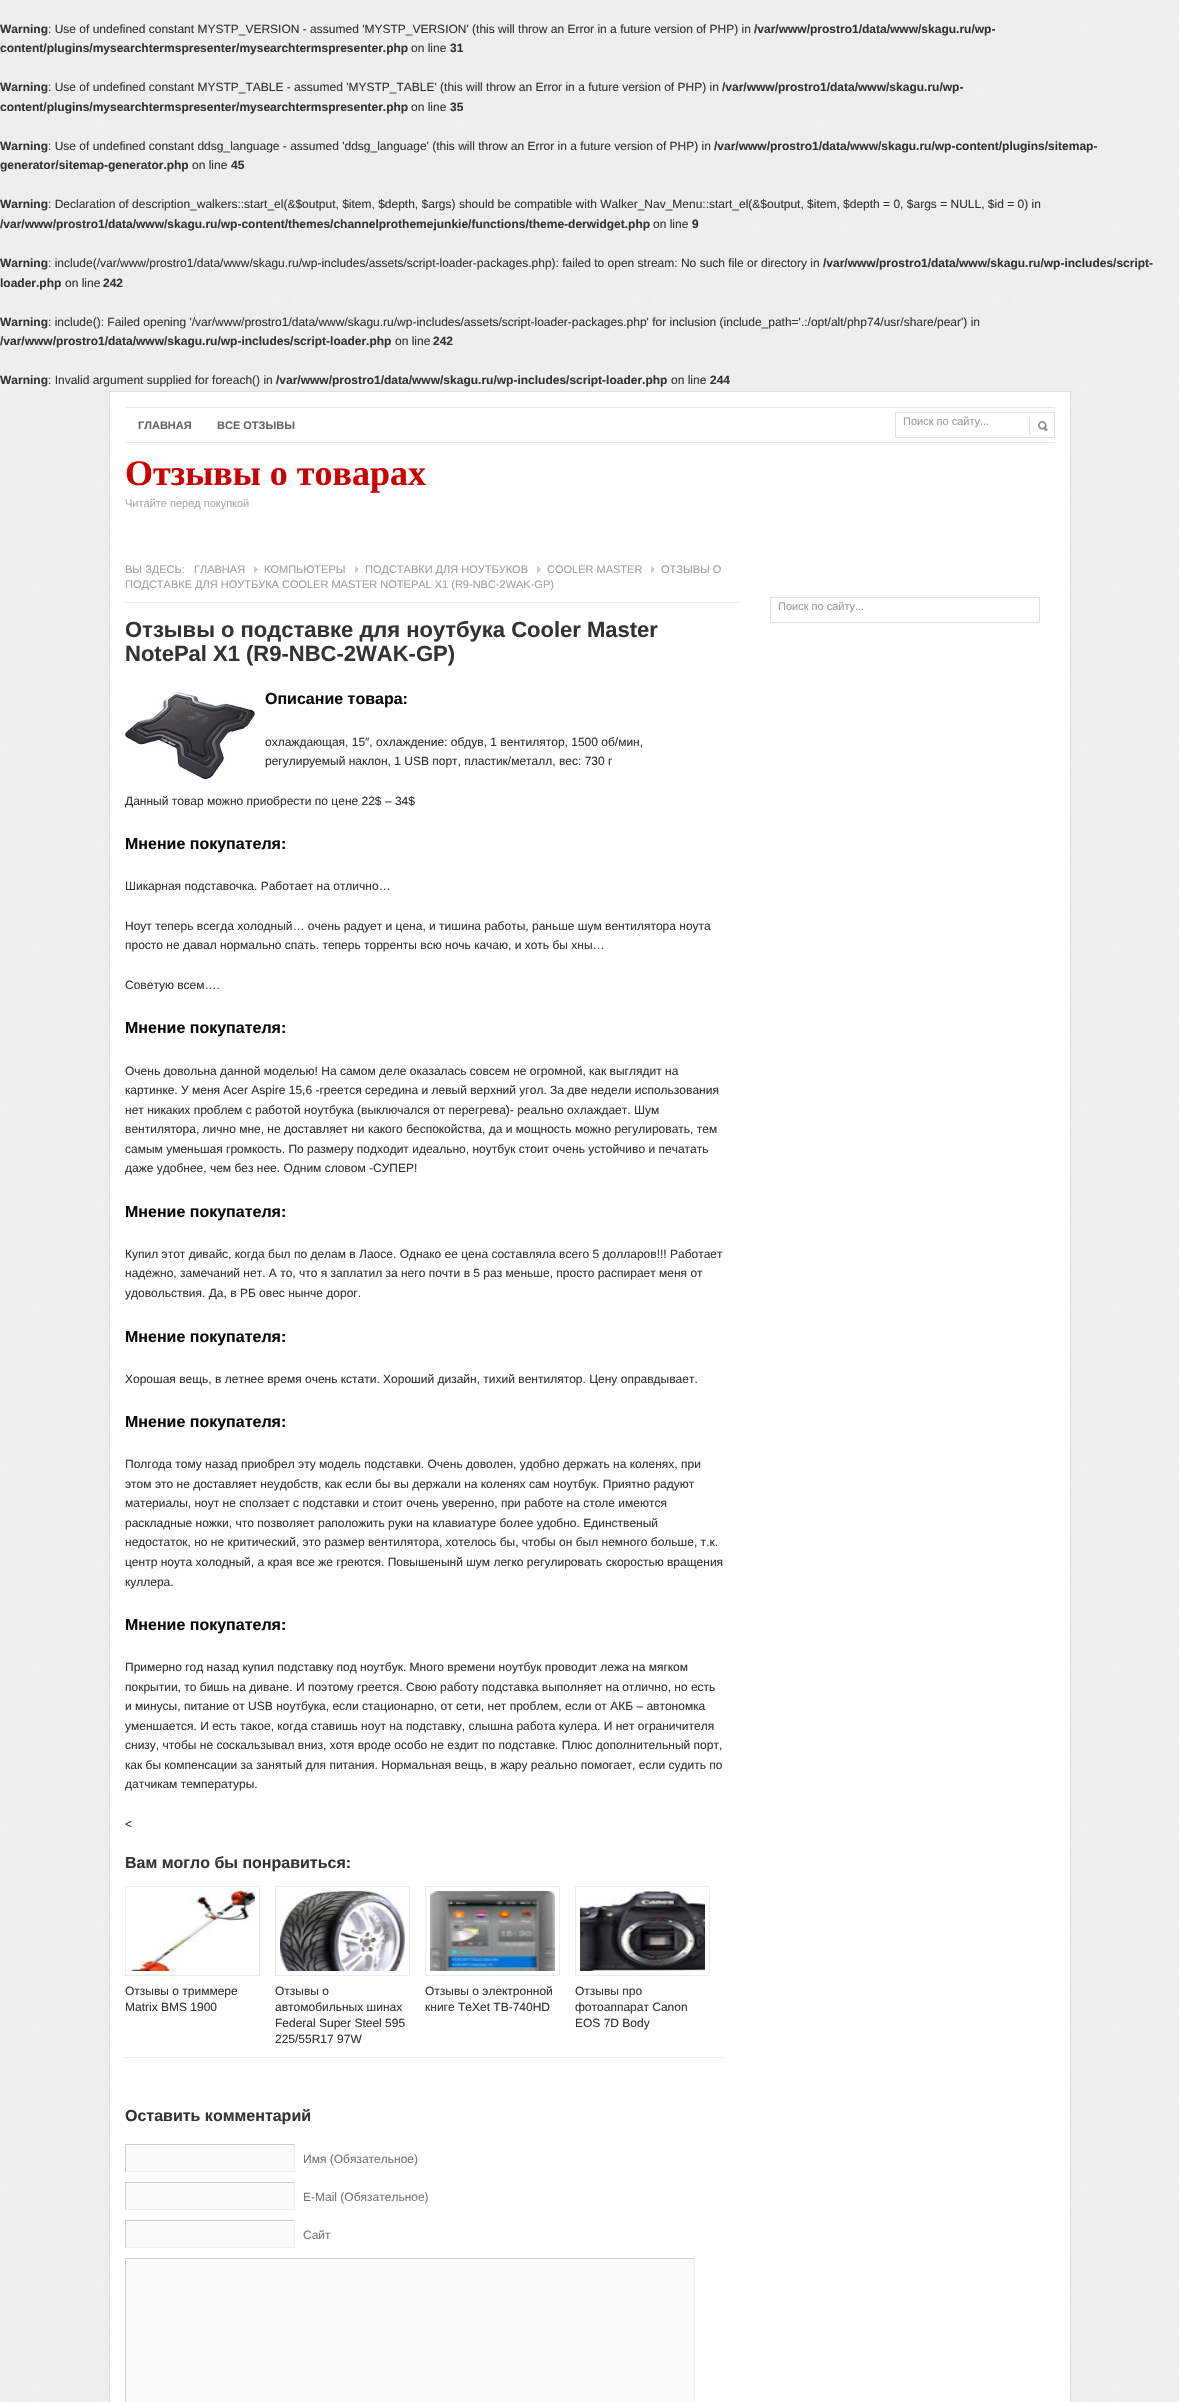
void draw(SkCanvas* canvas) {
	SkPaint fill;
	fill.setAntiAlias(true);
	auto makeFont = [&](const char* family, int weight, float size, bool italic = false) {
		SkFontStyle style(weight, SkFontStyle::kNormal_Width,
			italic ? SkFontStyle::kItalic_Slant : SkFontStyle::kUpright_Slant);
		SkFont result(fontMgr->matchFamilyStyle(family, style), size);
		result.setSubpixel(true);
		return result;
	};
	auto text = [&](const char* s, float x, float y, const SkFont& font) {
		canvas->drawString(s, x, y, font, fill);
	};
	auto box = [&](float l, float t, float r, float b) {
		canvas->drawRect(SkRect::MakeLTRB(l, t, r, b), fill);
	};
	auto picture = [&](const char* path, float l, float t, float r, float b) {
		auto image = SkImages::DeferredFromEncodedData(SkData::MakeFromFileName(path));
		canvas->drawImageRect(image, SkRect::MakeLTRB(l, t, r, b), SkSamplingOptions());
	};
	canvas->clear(0xFFFFFFFF);
	picture("image0.png", 0, 0, 1179, 2402);
	fill.setColor(0xFFFFFFFF);
	canvas->drawRect(SkRect::MakeLTRB(109.5f, 391.5f, 1070.5f, 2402.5f), fill);
	fill.setStyle(SkPaint::kStroke_Style);
	fill.setStrokeWidth(1);
	fill.setColor(0xFFDFDFDF);
	canvas->drawRect(SkRect::MakeLTRB(109.5f, 391.5f, 1070.5f, 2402.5f), fill);
	fill.setStyle(SkPaint::kFill_Style);
	fill.setColor(0xFFE6E6E6);
	box(125, 407, 1055, 408);
	box(125, 442, 1055, 443);
	fill.setStyle(SkPaint::kStroke_Style);
	fill.setColor(0xFFE0E0E0);
	canvas->drawRect(SkRect::MakeLTRB(895.5f, 412.5f, 1054.5f, 437.5f), fill);
	picture("image1.png", 1029, 417, 1048, 435);
	fill.setStyle(SkPaint::kFill_Style);
	fill.setColor(0xFFECEDE8);
	box(125, 602, 740, 603);
	picture("image2.png", 254, 566, 258, 573);
	picture("image2.png", 355, 566, 359, 573);
	picture("image2.png", 537, 566, 541, 573);
	picture("image2.png", 651, 566, 655, 573);
	picture("image3.png", 125, 692, 255, 779);
	box(125, 2057, 725, 2058);
	fill.setStyle(SkPaint::kStroke_Style);
	canvas->drawRect(SkRect::MakeLTRB(125.5f, 1886.5f, 259.5f, 1975.5f), fill);
	picture("image4.png", 130, 1891, 255, 1971);
	canvas->drawRect(SkRect::MakeLTRB(275.5f, 1886.5f, 409.5f, 1975.5f), fill);
	picture("image5.png", 280, 1891, 405, 1971);
	canvas->drawRect(SkRect::MakeLTRB(425.5f, 1886.5f, 559.5f, 1975.5f), fill);
	picture("image6.png", 430, 1891, 555, 1971);
	canvas->drawRect(SkRect::MakeLTRB(575.5f, 1886.5f, 709.5f, 1975.5f), fill);
	picture("image7.png", 580, 1891, 705, 1971);
	fill.setStyle(SkPaint::kFill_Style);
	fill.setColor(0xFFFAFAFA);
	box(126, 2145, 294, 2171);
	fill.setColor(0xFFCCCCCC);
	box(125, 2144, 295, 2145);
	fill.setColor(0xFFEFEFEF);
	box(294, 2144, 295, 2172);
	box(125, 2171, 295, 2172);
	fill.setColor(0xFFCCCCCC);
	box(125, 2144, 126, 2172);
	fill.setColor(0xFFFAFAFA);
	box(126, 2183, 294, 2209);
	fill.setColor(0xFFCCCCCC);
	box(125, 2182, 295, 2183);
	fill.setColor(0xFFEFEFEF);
	box(294, 2182, 295, 2210);
	box(125, 2209, 295, 2210);
	fill.setColor(0xFFCCCCCC);
	box(125, 2182, 126, 2210);
	fill.setColor(0xFFFAFAFA);
	box(126, 2221, 294, 2247);
	fill.setColor(0xFFCCCCCC);
	box(125, 2220, 295, 2221);
	fill.setColor(0xFFEFEFEF);
	box(294, 2220, 295, 2248);
	box(125, 2247, 295, 2248);
	fill.setColor(0xFFCCCCCC);
	box(125, 2220, 126, 2248);
	fill.setColor(0xFFFAFAFA);
	box(126, 2259, 694, 2402);
	fill.setColor(0xFFCCCCCC);
	box(125, 2258, 695, 2259);
	fill.setColor(0xFFEFEFEF);
	box(694, 2258, 695, 2402);
	fill.setColor(0xFFCCCCCC);
	box(125, 2258, 126, 2402);
	fill.setStyle(SkPaint::kStroke_Style);
	fill.setColor(0xFFE0E0E0);
	canvas->drawRect(SkRect::MakeLTRB(770.5f, 597.5f, 1039.5f, 622.5f), fill);
	auto font1 = makeFont("Liberation Sans", 700, 12);
	fill.setStyle(SkPaint::kFill_Style);
	fill.setColor(0xFF333333);
	text("Warning", 0, 33, font1);
	auto font2 = makeFont("Liberation Sans", 400, 12);
	text(": Use of undefined constant MYSTP_VERSION - assumed 'MYSTP_VERSION' (this will throw an Error in a future version of PHP) in", 48, 33, font2);
	text("/var/www/prostro1/data/www/skagu.ru/wp-", 754, 33, font1);
	text("content/plugins/mysearchtermspresenter/mysearchtermspresenter.php", 0, 52, font1);
	text("on line", 411, 52, font2);
	text("31", 450, 52, font1);
	text("Warning", 0, 91, font1);
	text(": Use of undefined constant MYSTP_TABLE - assumed 'MYSTP_TABLE' (this will throw an Error in a future version of PHP) in", 48, 91, font2);
	text("/var/www/prostro1/data/www/skagu.ru/wp-", 722, 91, font1);
	text("content/plugins/mysearchtermspresenter/mysearchtermspresenter.php", 0, 111, font1);
	text("on line", 411, 111, font2);
	text("35", 450, 111, font1);
	text("Warning", 0, 150, font1);
	text(": Use of undefined constant ddsg_language - assumed 'ddsg_language' (this will throw an Error in a future version of PHP) in", 48, 150, font2);
	text("/var/www/prostro1/data/www/skagu.ru/wp-content/plugins/sitemap-", 714, 150, font1);
	text("generator/sitemap-generator.php", 0, 169, font1);
	text("on line", 192, 169, font2);
	text("45", 231, 169, font1);
	text("Warning", 0, 208, font1);
	text(": Declaration of description_walkers::start_el(&$output, $item, $depth, $args) should be compatible with Walker_Nav_Menu::start_el(&$output, $item, $depth = 0, $args = NULL, $id = 0) in", 48, 208, font2);
	text("/var/www/prostro1/data/www/skagu.ru/wp-content/themes/channelprothemejunkie/functions/theme-derwidget.php", 0, 228, font1);
	text("on line", 653, 228, font2);
	text("9", 692, 228, font1);
	text("Warning", 0, 267, font1);
	text(": include(/var/www/prostro1/data/www/skagu.ru/wp-includes/assets/script-loader-packages.php): failed to open stream: No such file or directory in", 48, 267, font2);
	text("/var/www/prostro1/data/www/skagu.ru/wp-includes/script-", 823, 267, font1);
	text("loader.php", 0, 287, font1);
	text("on line", 65, 287, font2);
	text("242", 103, 287, font1);
	text("Warning", 0, 326, font1);
	text(": include(): Failed opening '/var/www/prostro1/data/www/skagu.ru/wp-includes/assets/script-loader-packages.php' for inclusion (include_path='.:/opt/alt/php74/usr/share/pear') in", 48, 326, font2);
	text("/var/www/prostro1/data/www/skagu.ru/wp-includes/script-loader.php", 0, 345, font1);
	text("on line", 395, 345, font2);
	text("242", 433, 345, font1);
	text("Warning", 0, 384, font1);
	text(": Invalid argument supplied for foreach() in", 48, 384, font2);
	text("/var/www/prostro1/data/www/skagu.ru/wp-includes/script-loader.php", 276, 384, font1);
	text("on line", 671, 384, font2);
	text("244", 710, 384, font1);
	auto font3 = makeFont("Liberation Sans", 700, 11);
	fill.setColor(0xFF666666);
	text("ГЛАВНАЯ", 138, 429, font3);
	text("ВСЕ ОТЗЫВЫ", 217, 429, font3);
	auto font4 = makeFont("Liberation Sans", 400, 11);
	fill.setColor(0xFF999999);
	text("Поиск по сайту...", 903, 425, font4);
	auto font5 = makeFont("Liberation Serif", 700, 36);
	fill.setColor(0xFFCC0000);
	text("Отзывы о товарах", 125, 485, font5);
	fill.setColor(0xFFAAAAAA);
	text("Читайте перед покупкой", 125, 507, font4);
	fill.setColor(0xFF9F9F9F);
	text("ВЫ ЗДЕСЬ:", 125, 573, font4);
	text("ГЛАВНАЯ", 194, 573, font4);
	text("КОМПЬЮТЕРЫ", 264, 573, font4);
	text("ПОДСТАВКИ ДЛЯ НОУТБУКОВ", 365, 573, font4);
	text("COOLER MASTER", 547, 573, font4);
	text("ОТЗЫВЫ О", 661, 573, font4);
	text("ПОДСТАВКЕ ДЛЯ НОУТБУКА COOLER MASTER NOTEPAL X1 (R9-NBC-2WAK-GP)", 125, 588, font4);
	auto font6 = makeFont("Liberation Sans", 700, 22);
	fill.setColor(0xFF333333);
	text("Отзывы о подставке для ноутбука Cooler Master", 125, 637, font6);
	text("NotePal X1 (R9-NBC-2WAK-GP)", 125, 661, font6);
	auto font7 = makeFont("Liberation Sans", 700, 16);
	fill.setColor(0xFF0A0A0A);
	text("Описание товара:", 265, 704, font7);
	fill.setColor(0xFF333333);
	text("охлаждающая, 15″, охлаждение: обдув, 1 вентилятор, 1500 об/мин,", 265, 746, font2);
	text("регулируемый наклон, 1 USB порт, пластик/металл, вес: 730 г", 265, 765, font2);
	text("Данный товар можно приобрести по цене 22$ – 34$", 125, 805, font2);
	fill.setColor(0xFF0A0A0A);
	text("Мнение покупателя:", 125, 849, font7);
	fill.setColor(0xFF333333);
	text("Шикарная подставочка. Работает на отлично…", 125, 890, font2);
	text("Ноут теперь всегда холодный… очень радует и цена, и тишина работы, раньше шум вентилятора ноута", 125, 930, font2);
	text("просто не давал нормально спать. теперь торренты всю ночь качаю, и хоть бы хны…", 125, 949, font2);
	text("Советую всем….", 125, 989, font2);
	fill.setColor(0xFF0A0A0A);
	text("Мнение покупателя:", 125, 1033, font7);
	fill.setColor(0xFF333333);
	text("Очень довольна данной моделью! На самом деле оказалась совсем не огромной, как выглядит на", 125, 1075, font2);
	text("картинке. У меня Acer Aspire 15,6 -греется середина и левый верхний угол. За две недели использования", 125, 1094, font2);
	text("нет никаких проблем с работой ноутбука (выключался от перегрева)- реально охлаждает. Шум", 125, 1114, font2);
	text("вентилятора, лично мне, не доставляет ни какого беспокойства, да и мощность можно регулировать, тем", 125, 1133, font2);
	text("самым уменьшая громкость. По размеру подходит идеально, ноутбук стоит очень устойчиво и печатать", 125, 1153, font2);
	text("даже удобнее, чем без нее. Одним словом -СУПЕР!", 125, 1172, font2);
	fill.setColor(0xFF0A0A0A);
	text("Мнение покупателя:", 125, 1217, font7);
	fill.setColor(0xFF333333);
	text("Купил этот дивайс, когда был по делам в Лаосе. Однако ее цена составляла всего 5 долларов!!! Работает", 125, 1258, font2);
	text("надежно, замечаний нет. А то, что я заплатил за него почти в 5 раз меньше, просто распирает меня от", 125, 1277, font2);
	text("удовольствия. Да, в РБ овес нынче дорог.", 125, 1297, font2);
	fill.setColor(0xFF0A0A0A);
	text("Мнение покупателя:", 125, 1342, font7);
	fill.setColor(0xFF333333);
	text("Хорошая вещь, в летнее время очень кстати. Хороший дизайн, тихий вентилятор. Цену оправдывает.", 125, 1383, font2);
	fill.setColor(0xFF0A0A0A);
	text("Мнение покупателя:", 125, 1427, font7);
	fill.setColor(0xFF333333);
	text("Полгода тому назад приобрел эту модель подставки. Очень доволен, удобно держать на коленях, при", 125, 1468, font2);
	text("этом это не доставляет неудобств, как если бы вы держали на коленях сам ноутбук. Приятно радуют", 125, 1488, font2);
	text("материалы, ноут не сползает с подставки и стоит очень уверенно, при работе на столе имеются", 125, 1507, font2);
	text("раскладные ножки, что позволяет раположить руки на клавиатуре более удобно. Единственый", 125, 1527, font2);
	text("недостаток, но не критический, это размер вентилятора, хотелось бы, чтобы он был немного больше, т.к.", 125, 1546, font2);
	text("центр ноута холодный, а края все же греются. Повышенынй шум легко регулировать скоростью вращения", 125, 1566, font2);
	text("куллера.", 125, 1586, font2);
	fill.setColor(0xFF0A0A0A);
	text("Мнение покупателя:", 125, 1630, font7);
	fill.setColor(0xFF333333);
	text("Примерно год назад купил подставку под ноутбук. Много времени ноутбук проводит лежа на мягком", 125, 1671, font2);
	text("покрытии, то бишь на диване. И поэтому греется. Свою работу подставка выполняет на отлично, но есть", 125, 1691, font2);
	text("и минусы, питание от USB ноутбука, если стационарно, от сети, нет проблем, если от АКБ – автономка", 125, 1710, font2);
	text("уменшается. И есть такое, когда ставишь ноут на подставку, слышна работа кулера. И нет ограничителя", 125, 1730, font2);
	text("снизу, чтобы не соскальзывал вниз, хотя вроде особо не ездит по подставке. Плюс дополнительный порт,", 125, 1749, font2);
	text("как бы компенсации за занятый для питания. Нормальная вещь, в жару реально помогает, если судить по", 125, 1769, font2);
	text("датчикам температуры.", 125, 1788, font2);
	text("<", 125, 1828, font2);
	text("Вам могло бы понравиться:", 125, 1868, font7);
	text("Отзывы о триммере", 125, 1995, font2);
	text("Matrix BMS 1900", 125, 2011, font2);
	text("Отзывы о", 275, 1995, font2);
	text("автомобильных шинах", 275, 2011, font2);
	text("Federal Super Steel 595", 275, 2027, font2);
	text("225/55R17 97W", 275, 2043, font2);
	text("Отзывы о электронной", 425, 1995, font2);
	text("книге TeXet TB-740HD", 425, 2011, font2);
	text("Отзывы про", 575, 1995, font2);
	text("фотоаппарат Canon", 575, 2011, font2);
	text("EOS 7D Body", 575, 2027, font2);
	text("Оставить комментарий", 125, 2121, font7);
	fill.setColor(0xFF777777);
	text("Имя (Обязательное)", 303, 2163, font2);
	text("E-Mail (Обязательное)", 303, 2201, font2);
	text("Сайт", 303, 2239, font2);
	fill.setColor(0xFF999999);
	text("Поиск по сайту...", 778, 610, font4);
}
